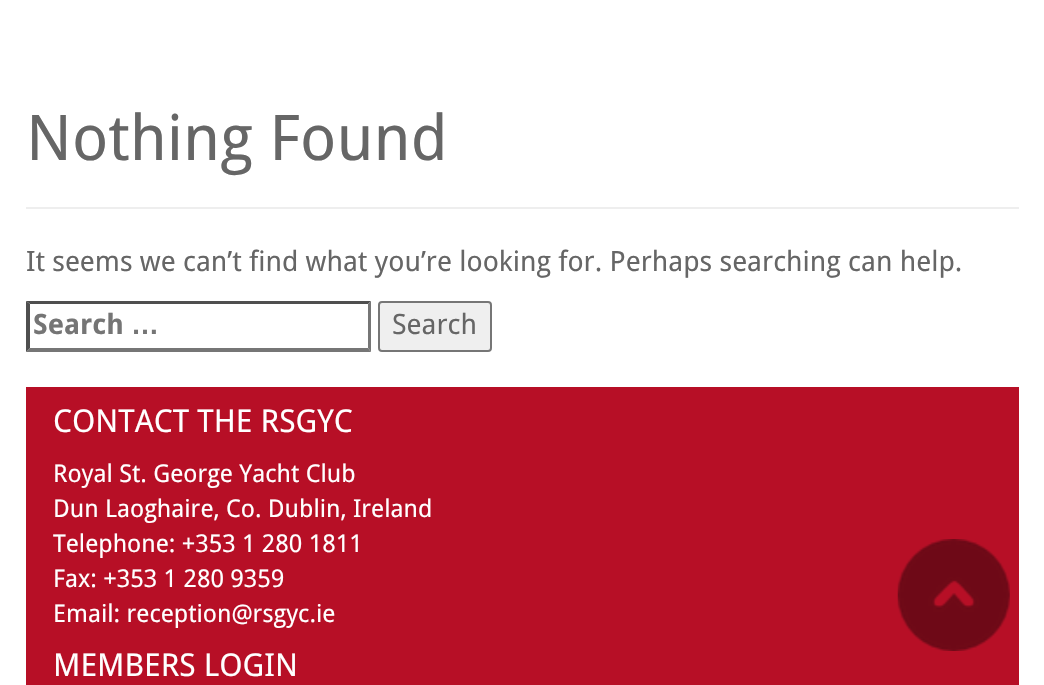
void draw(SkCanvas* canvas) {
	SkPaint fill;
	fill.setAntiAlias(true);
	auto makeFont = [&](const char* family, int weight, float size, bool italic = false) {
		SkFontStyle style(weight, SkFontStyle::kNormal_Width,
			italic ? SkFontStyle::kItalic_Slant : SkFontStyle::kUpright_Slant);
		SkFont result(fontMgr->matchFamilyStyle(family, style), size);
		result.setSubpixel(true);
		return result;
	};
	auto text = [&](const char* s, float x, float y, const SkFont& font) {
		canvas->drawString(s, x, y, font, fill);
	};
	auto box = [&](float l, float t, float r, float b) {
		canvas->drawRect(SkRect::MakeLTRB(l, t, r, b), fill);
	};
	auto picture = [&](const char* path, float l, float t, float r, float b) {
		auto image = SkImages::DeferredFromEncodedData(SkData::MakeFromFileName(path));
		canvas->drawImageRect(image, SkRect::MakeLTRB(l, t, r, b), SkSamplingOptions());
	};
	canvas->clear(0xFFFFFFFF);
	fill.setColor(0xFFEEEEEE);
	box(26, 207, 1019, 209);
	fill.setColor(0xFF4F4F4F);
	canvas->drawPath(SkPathBuilder().moveTo(26, 301).lineTo(371, 301).lineTo(368, 304).lineTo(30, 304).close().detach(), fill);
	fill.setColor(0xFF767676);
	canvas->drawPath(SkPathBuilder().moveTo(371, 301).lineTo(371, 352).lineTo(368, 348).lineTo(368, 304).close().detach(), fill);
	canvas->drawPath(SkPathBuilder().moveTo(371, 352).lineTo(26, 352).lineTo(30, 348).lineTo(368, 348).close().detach(), fill);
	fill.setColor(0xFF4F4F4F);
	canvas->drawPath(SkPathBuilder().moveTo(26, 352).lineTo(26, 301).lineTo(30, 304).lineTo(30, 348).close().detach(), fill);
	fill.setColor(0xFFEFEFEF);
	canvas->drawRoundRect(SkRect::MakeLTRB(379, 302, 491, 351), 3, 3, fill);
	fill.setStyle(SkPaint::kStroke_Style);
	fill.setStrokeWidth(2);
	fill.setColor(0xFF767676);
	canvas->drawRoundRect(SkRect::MakeLTRB(379, 302, 491, 351), 3, 3, fill);
	fill.setStyle(SkPaint::kFill_Style);
	fill.setColor(0xFFB70F26);
	box(26, 387, 1019, 685);
	picture("image0.png", 897, 539, 1010, 651);
	auto font1 = makeFont("Droid Sans", 400, 63);
	fill.setColor(0xFF666666);
	text("Nothing Found", 26, 160, font1);
	auto font2 = makeFont("Droid Sans", 400, 28);
	text("It seems we can’t find what you’re looking for. Perhaps searching can help.", 26, 271, font2);
	auto font3 = makeFont("Droid Sans", 700, 28);
	fill.setColor(0xFF757575);
	text("Search", 33, 334, font3);
	auto font4 = makeFont("Liberation Sans", 700, 28);
	text("…", 131, 334, font4);
	fill.setColor(0xFF666666);
	text("Search", 392, 334, font2);
	auto font5 = makeFont("Droid Sans", 400, 31.5f);
	fill.setColor(0xFFFFFFFF);
	text("CONTACT THE RSGYC", 53, 432, font5);
	auto font6 = makeFont("Droid Sans", 400, 24.5f);
	text("Royal St. George Yacht Club", 53, 482, font6);
	text("Dun Laoghaire, Co. Dublin, Ireland", 53, 517, font6);
	text("Telephone: +353 1 280 1811", 53, 552, font6);
	text("Fax: +353 1 280 9359", 53, 587, font6);
	text("Email: reception@rsgyc.ie", 53, 622, font6);
	text("MEMBERS LOGIN", 53, 676, font5);
}
